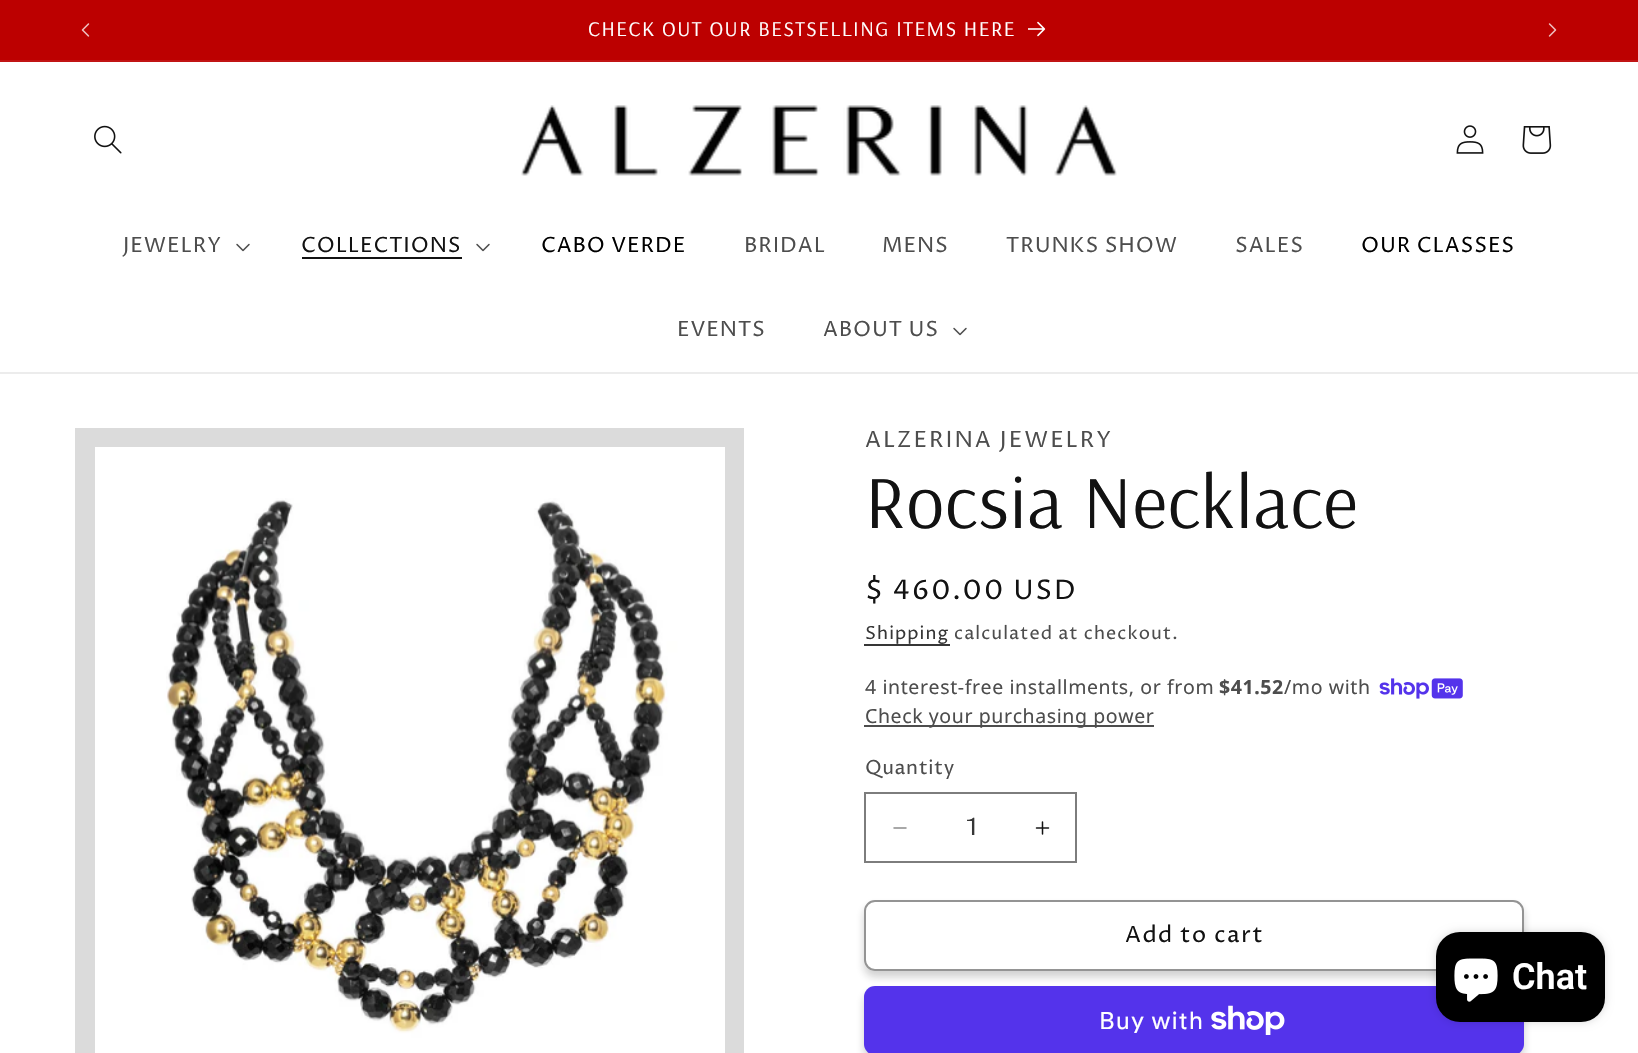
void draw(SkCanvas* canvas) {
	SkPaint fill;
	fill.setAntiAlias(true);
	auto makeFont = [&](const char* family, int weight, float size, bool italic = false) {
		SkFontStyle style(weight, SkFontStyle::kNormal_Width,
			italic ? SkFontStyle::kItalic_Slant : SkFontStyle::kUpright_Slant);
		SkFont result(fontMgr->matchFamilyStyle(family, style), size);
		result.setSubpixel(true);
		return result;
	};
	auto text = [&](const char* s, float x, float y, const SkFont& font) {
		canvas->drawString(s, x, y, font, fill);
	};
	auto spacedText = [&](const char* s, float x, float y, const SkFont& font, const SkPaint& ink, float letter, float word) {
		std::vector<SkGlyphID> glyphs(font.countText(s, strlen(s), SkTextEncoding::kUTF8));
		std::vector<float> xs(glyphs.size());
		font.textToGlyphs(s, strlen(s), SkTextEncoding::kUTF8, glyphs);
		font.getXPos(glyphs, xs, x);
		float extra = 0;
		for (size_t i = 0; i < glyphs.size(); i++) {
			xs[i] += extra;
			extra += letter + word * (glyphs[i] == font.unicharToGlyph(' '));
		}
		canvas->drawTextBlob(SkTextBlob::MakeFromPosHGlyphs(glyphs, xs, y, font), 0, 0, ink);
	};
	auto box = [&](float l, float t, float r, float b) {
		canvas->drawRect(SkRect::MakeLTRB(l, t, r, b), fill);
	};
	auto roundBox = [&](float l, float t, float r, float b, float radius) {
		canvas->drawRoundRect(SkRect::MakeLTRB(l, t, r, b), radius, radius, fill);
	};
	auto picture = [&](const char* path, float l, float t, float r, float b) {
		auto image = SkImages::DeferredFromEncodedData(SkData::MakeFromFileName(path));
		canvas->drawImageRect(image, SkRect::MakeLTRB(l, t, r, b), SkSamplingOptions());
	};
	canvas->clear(0xFFFFFFFF);
	fill.setColor(0xFFBC0000);
	box(0, 0, 1638, 60);
	fill.setColor(0xFFC11414);
	box(0, 60, 1638, 62);
	picture("image0.png", 81, 23, 90, 37);
	picture("image1.png", 1028, 21, 1046, 37);
	picture("image2.png", 1548, 23, 1557, 37);
	fill.setColor(0xFFECECEC);
	box(0, 372, 1638, 374);
	picture("image3.png", 94, 125, 122, 154);
	picture("image4.png", 521, 105, 1117, 176);
	picture("image5.png", 1456, 125, 1484, 154);
	picture("image6.png", 1522, 126, 1552, 154);
	picture("image7.png", 236, 243, 250, 252);
	fill.setColor(0xFF121212);
	box(302, 257, 462, 259);
	picture("image7.png", 476, 243, 490, 252);
	picture("image7.png", 953, 327, 967, 336);
	fill.setStyle(SkPaint::kStroke_Style);
	fill.setStrokeWidth(20);
	fill.setColor(0xFFDBDBDB);
	canvas->drawRect(SkRect::MakeLTRB(85, 438, 734, 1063), fill);
	picture("image8.png", 95, 447, 725, 1053);
	fill.setStyle(SkPaint::kFill_Style);
	fill.setColor(0xFF363636);
	box(864, 644, 950, 646);
	picture("image9.png", 1379, 678, 1463, 699);
	fill.setColor(0xFF4D4D4D);
	box(864, 725, 1154, 727);
	picture("image10.png", 893, 827, 907, 829);
	picture("image11.png", 1035, 821, 1050, 835);
	fill.setStyle(SkPaint::kStroke_Style);
	fill.setStrokeWidth(2);
	fill.setColor(0xFF7D7D7D);
	canvas->drawRect(SkRect::MakeLTRB(865, 793, 1076, 862), fill);
	fill.setStyle(SkPaint::kFill_Style);
	fill.setColor(0x33121212);
	fill.setMaskFilter(SkMaskFilter::MakeBlur(kNormal_SkBlurStyle, 4));
	canvas->drawRoundRect(SkRect::MakeLTRB(864, 906, 1524, 977), 11, 11, fill);
	fill.setMaskFilter(nullptr);
	fill.setColor(0xFFFFFFFF);
	roundBox(864, 900, 1524, 971, 11);
	fill.setStyle(SkPaint::kStroke_Style);
	canvas->drawRoundRect(SkRect::MakeLTRB(865, 901, 1523, 970), 10, 10, fill);
	fill.setColor(0x73121212);
	canvas->drawRoundRect(SkRect::MakeLTRB(865, 901, 1523, 970), 10, 10, fill);
	fill.setStyle(SkPaint::kFill_Style);
	fill.setColor(0x33121212);
	fill.setMaskFilter(SkMaskFilter::MakeBlur(kNormal_SkBlurStyle, 4));
	canvas->drawRoundRect(SkRect::MakeLTRB(864, 992, 1524, 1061), 11, 11, fill);
	fill.setMaskFilter(nullptr);
	fill.setColor(0xFF5433EB);
	roundBox(864, 986, 1524, 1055, 11);
	picture("image12.png", 1211, 1005, 1285, 1035);
	fill.setColor(0x26000000);
	fill.setMaskFilter(SkMaskFilter::MakeBlur(kNormal_SkBlurStyle, 4));
	canvas->drawRoundRect(SkRect::MakeLTRB(1436, 932, 1605, 1022), 24, 24, fill);
	fill.setMaskFilter(nullptr);
	fill.setColor(0xFF000000);
	roundBox(1436, 932, 1605, 1022, 24);
	picture("image13.png", 1454, 958, 1498, 1002);
	auto font1 = makeFont("Arsenal", 400, 21);
	fill.setColor(0xFFFFFFFF);
	spacedText("CHECK OUT OUR BESTSELLING ITEMS HERE", 588, 36, font1, fill, 1.5f, 0);
	auto font2 = makeFont("Proza Libre", 400, 21);
	fill.setColor(0xFF4D4D4D);
	spacedText("JEWELRY", 123, 252, font2, fill, 0.9f, 0);
	fill.setColor(0xFF121212);
	spacedText("COLLECTIONS", 301, 252, font2, fill, 0.9f, 0);
	fill.setColor(0xFF000000);
	spacedText("CABO VERDE", 541, 252, font2, fill, 0.9f, 0);
	fill.setColor(0xFF4D4D4D);
	spacedText("BRIDAL", 744, 252, font2, fill, 0.9f, 0);
	spacedText("MENS", 882, 252, font2, fill, 0.9f, 0);
	spacedText("TRUNKS SHOW", 1006, 252, font2, fill, 0.9f, 0);
	spacedText("SALES", 1235, 252, font2, fill, 0.9f, 0);
	fill.setColor(0xFF000000);
	spacedText("OUR CLASSES", 1361, 252, font2, fill, 0.9f, 0);
	fill.setColor(0xFF4D4D4D);
	spacedText("EVENTS", 677, 336, font2, fill, 0.9f, 0);
	spacedText("ABOUT US", 823, 336, font2, fill, 0.9f, 0);
	auto font3 = makeFont("Proza Libre", 400, 22.5f);
	spacedText("ALZERINA JEWELRY", 865, 447, font3, fill, 2, 0);
	auto font4 = makeFont("Arsenal", 400, 75);
	fill.setColor(0xFF121212);
	spacedText("Rocsia Necklace", 865, 528, font4, fill, 1.1f, 0);
	auto font5 = makeFont("Proza Libre", 400, 27);
	spacedText("$ 460.00 USD", 865, 599, font5, fill, 2, 0);
	auto font6 = makeFont("Proza Libre", 400, 18);
	fill.setColor(0xFF363636);
	spacedText("Shipping", 865, 639, font6, fill, 1.05f, 0);
	fill.setColor(0xFF4D4D4D);
	spacedText("calculated at checkout.", 954, 639, font6, fill, 1.05f, 0);
	auto font7 = makeFont("Noto Sans", 400, 19.5f);
	spacedText("4 interest-free installments, or from", 865, 694, font7, fill, 0.6f, 0);
	auto font8 = makeFont("Noto Sans", 700, 19.5f);
	spacedText("$41.52", 1219, 694, font8, fill, 0.6f, 0);
	spacedText("/mo with", 1284, 694, font7, fill, 0.6f, 0);
	spacedText("Check your purchasing power", 865, 723, font7, fill, 0.6f, 0);
	auto font9 = makeFont("Proza Libre", 400, 19.5f);
	spacedText("Quantity", 865, 774, font9, fill, 0.6f, 0);
	auto font10 = makeFont("Proza Libre", 400, 24);
	fill.setColor(0xFF363636);
	text("1", 966, 835, font10);
	fill.setColor(0xFF121212);
	spacedText("Add to cart", 1125, 942, font3, fill, 1.5f, 0);
	auto font11 = makeFont("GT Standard", 400, 24);
	fill.setColor(0xFFFFFFFF);
	spacedText("Buy with", 1099, 1029, font11, fill, 0.9f, 0);
	auto font12 = makeFont("Roboto", 600, 36);
	text("Chat", 1512, 989, font12);
}
